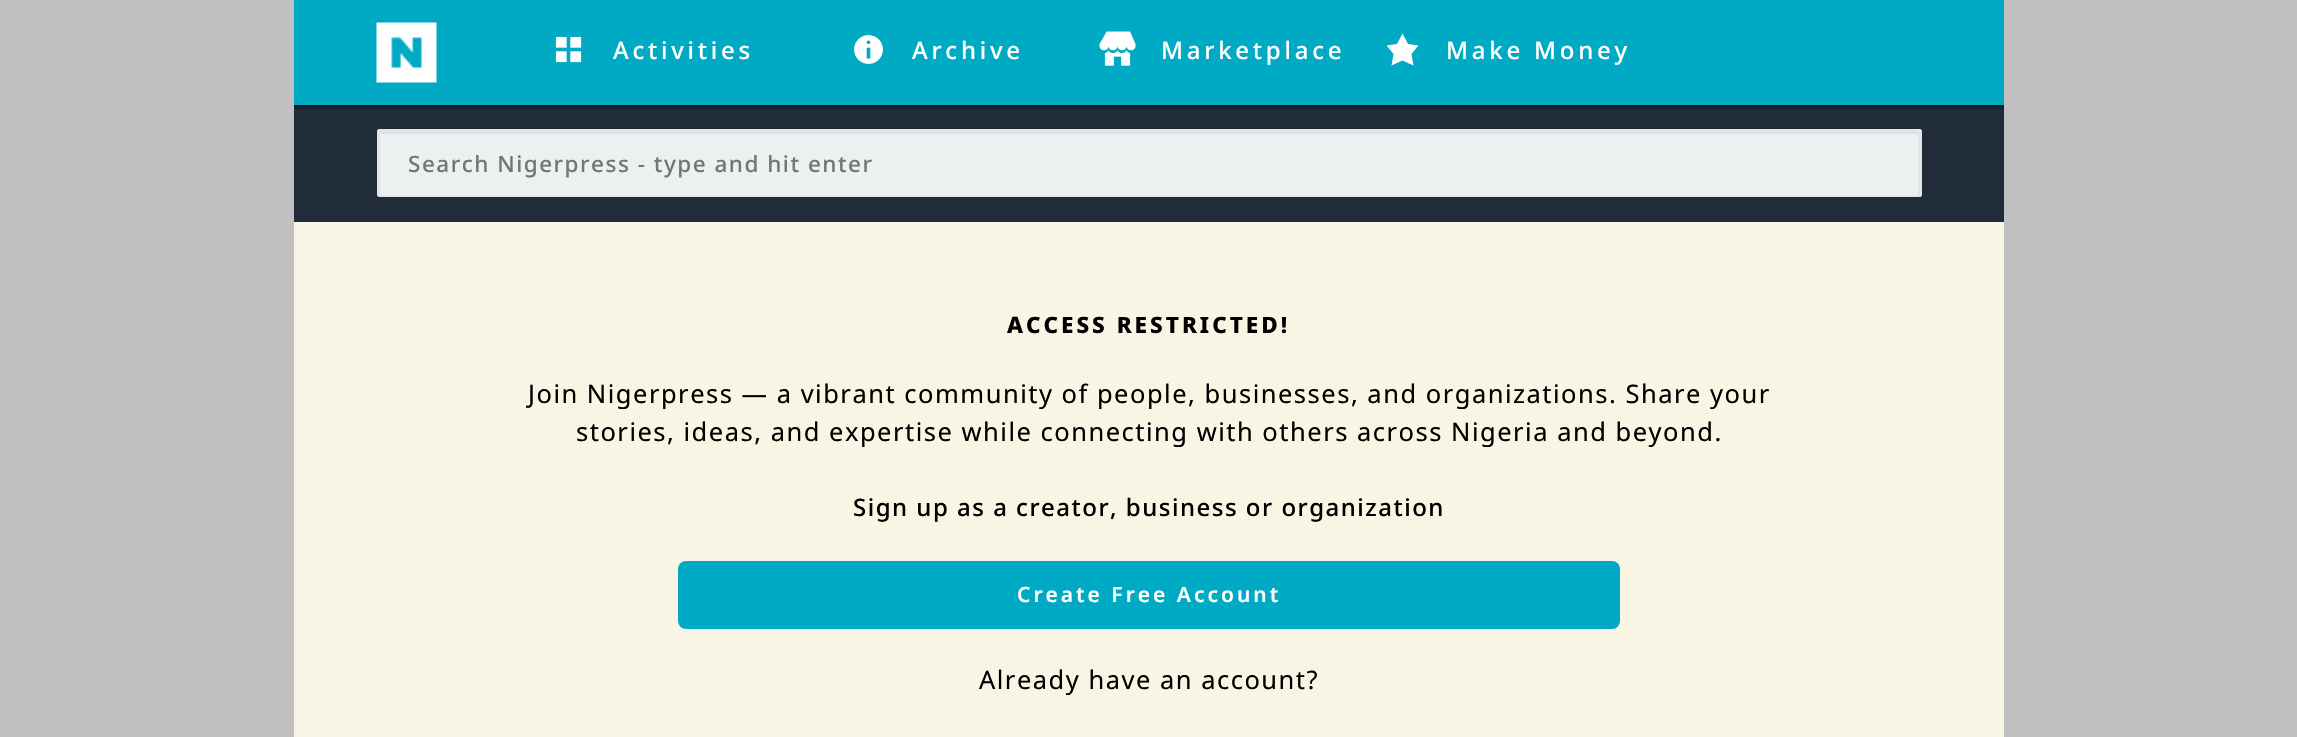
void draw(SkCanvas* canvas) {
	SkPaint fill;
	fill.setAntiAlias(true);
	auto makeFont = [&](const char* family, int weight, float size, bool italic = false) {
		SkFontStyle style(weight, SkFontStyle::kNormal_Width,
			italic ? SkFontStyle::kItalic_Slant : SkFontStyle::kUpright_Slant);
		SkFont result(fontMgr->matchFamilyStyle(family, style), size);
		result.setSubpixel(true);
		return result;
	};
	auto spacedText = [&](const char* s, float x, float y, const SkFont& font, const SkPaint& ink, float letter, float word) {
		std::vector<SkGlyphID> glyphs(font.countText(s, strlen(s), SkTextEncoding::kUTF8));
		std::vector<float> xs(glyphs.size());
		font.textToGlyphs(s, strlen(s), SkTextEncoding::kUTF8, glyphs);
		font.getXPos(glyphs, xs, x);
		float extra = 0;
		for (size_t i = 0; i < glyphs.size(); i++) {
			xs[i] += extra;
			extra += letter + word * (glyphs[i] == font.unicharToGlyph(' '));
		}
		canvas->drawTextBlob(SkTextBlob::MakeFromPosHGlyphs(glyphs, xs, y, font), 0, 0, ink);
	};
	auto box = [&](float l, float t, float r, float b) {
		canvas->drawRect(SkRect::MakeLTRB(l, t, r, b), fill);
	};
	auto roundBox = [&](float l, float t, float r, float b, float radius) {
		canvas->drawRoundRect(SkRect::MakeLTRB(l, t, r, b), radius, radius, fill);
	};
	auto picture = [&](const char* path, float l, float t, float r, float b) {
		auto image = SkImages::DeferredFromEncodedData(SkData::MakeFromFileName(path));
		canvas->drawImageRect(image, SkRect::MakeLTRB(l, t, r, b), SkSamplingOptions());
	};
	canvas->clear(0xFFC0C0C0);
	fill.setColor(0xFFF8F5E4);
	box(294, 222, 2004, 737);
	fill.setColor(0xFF202C39);
	box(294, 105, 2004, 222);
	canvas->save();
	canvas->clipRect(SkRect::MakeLTRB(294, 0, 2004, 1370));
	fill.setColor(0x80000000);
	fill.setMaskFilter(SkMaskFilter::MakeBlur(kNormal_SkBlurStyle, 1.5f));
	canvas->drawRect(SkRect::MakeLTRB(294, 3, 2004, 108), fill);
	fill.setMaskFilter(nullptr);
	canvas->restore();
	fill.setColor(0xFF00AAC4);
	box(294, 0, 2004, 105);
	picture("image0.png", 376, 22, 437, 83);
	picture("image1.png", 555, 36, 582, 63);
	picture("image2.png", 854, 35, 883, 64);
	picture("image3.png", 1099, 31, 1136, 66);
	fill.setColor(0xFFFFFFFF);
	canvas->drawPath(SkPathBuilder().moveTo(1402.5f, 33.5f).lineTo(1408, 44).lineTo(1418.5f, 45.5f).lineTo(1411.5f, 54).lineTo(1413.5f, 65.5f).lineTo(1402.5f, 60.5f).lineTo(1391.5f, 65.5f).lineTo(1393.5f, 54).lineTo(1386.5f, 45.5f).lineTo(1397, 44).close().detach(), fill);
	fill.setColor(0xFFECF0F1);
	roundBox(377, 129, 1922, 197, 3);
	fill.setColor(0xFFE0E4E5);
	canvas->drawPath(SkPathBuilder().moveTo(380, 134).lineTo(1918, 134).lineTo(1918, 195).cubicTo(1923, 195, 1920, 183, 1920, 183).lineTo(1920, 143).cubicTo(1920, 140, 1922, 131, 1918, 131).lineTo(379, 131).lineTo(378, 132).lineTo(378, 194).lineTo(380, 195).close().detach(), fill);
	fill.setStyle(SkPaint::kStroke_Style);
	fill.setStrokeWidth(2);
	fill.setColor(0xFFE5E5E5);
	canvas->drawRoundRect(SkRect::MakeLTRB(378, 130, 1921, 196), 2, 2, fill);
	fill.setStyle(SkPaint::kFill_Style);
	fill.setColor(0xFF00AAC4);
	roundBox(678, 561, 1620, 629, 8);
	auto font1 = makeFont("Noto Sans", 500, 24);
	fill.setColor(0xFFFFFFFF);
	spacedText("Activities", 613, 59, font1, fill, 3.75f, 0);
	spacedText("Archive", 912, 59, font1, fill, 3.75f, 0);
	spacedText("Marketplace", 1161, 59, font1, fill, 3.75f, 0);
	spacedText("Make Money", 1446, 59, font1, fill, 3.75f, 0);
	auto font2 = makeFont("Noto Sans", 500, 22.5f);
	fill.setColor(0xFF757575);
	spacedText("Search Nigerpress - type and hit enter", 408, 172, font2, fill, 1.5f, 0);
	auto font3 = makeFont("Noto Sans", 800, 22.5f);
	fill.setColor(0xFF000000);
	spacedText("ACCESS RESTRICTED!", 1007, 333, font3, fill, 3, 0);
	auto font4 = makeFont("Noto Sans", 400, 25.5f);
	spacedText("Join Nigerpress — a vibrant community of people, businesses, and organizations. Share your", 528, 403, font4, fill, 1.5f, 0);
	spacedText("stories, ideas, and expertise while connecting with others across Nigeria and beyond.", 576, 441, font4, fill, 1.5f, 0);
	spacedText("Sign up as a creator, business or organization", 853, 516, font1, fill, 1.5f, 0);
	auto font5 = makeFont("Noto Sans", 600, 21);
	fill.setColor(0xFFFFFFFF);
	spacedText("Create Free Account", 1017, 602, font5, fill, 3, 0);
	fill.setColor(0xFF000000);
	spacedText("Already have an account?", 979, 689, font4, fill, 1.5f, 0);
}
